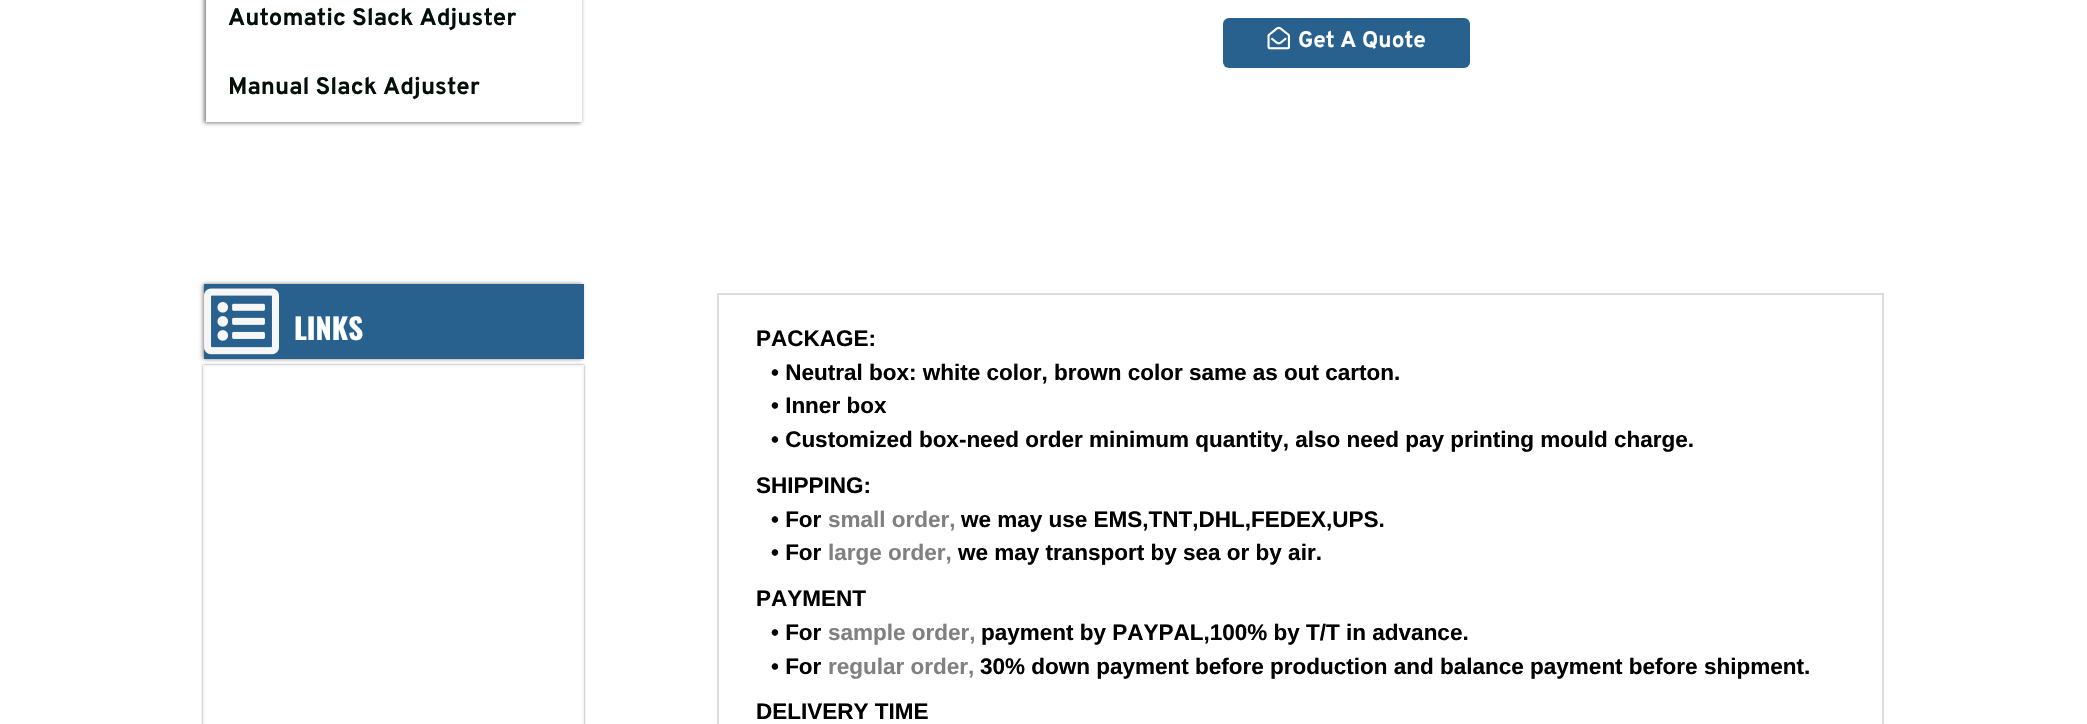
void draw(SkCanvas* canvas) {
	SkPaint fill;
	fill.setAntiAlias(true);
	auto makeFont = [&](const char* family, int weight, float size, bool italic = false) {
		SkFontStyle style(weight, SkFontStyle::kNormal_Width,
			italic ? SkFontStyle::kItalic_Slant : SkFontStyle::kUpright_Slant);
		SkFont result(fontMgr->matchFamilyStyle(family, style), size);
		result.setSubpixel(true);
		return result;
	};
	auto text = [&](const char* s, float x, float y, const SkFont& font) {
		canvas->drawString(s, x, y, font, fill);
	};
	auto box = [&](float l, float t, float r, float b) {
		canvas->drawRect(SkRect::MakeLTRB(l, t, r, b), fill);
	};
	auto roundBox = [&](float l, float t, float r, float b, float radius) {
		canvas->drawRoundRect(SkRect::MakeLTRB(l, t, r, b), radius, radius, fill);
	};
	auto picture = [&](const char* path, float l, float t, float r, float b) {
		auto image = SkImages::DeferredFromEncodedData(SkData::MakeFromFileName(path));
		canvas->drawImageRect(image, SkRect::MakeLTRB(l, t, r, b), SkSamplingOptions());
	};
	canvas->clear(0xFFFFFFFF);
	canvas->save();
	canvas->clipPath(SkPathBuilder(SkPathFillType::kEvenOdd).moveTo(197, 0).lineTo(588, 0).lineTo(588, 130).lineTo(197, 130).close().moveTo(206, -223).lineTo(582, -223).lineTo(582, 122).lineTo(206, 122).close().detach(), true);
	fill.setColor(0x80000000);
	fill.setMaskFilter(SkMaskFilter::MakeBlur(kNormal_SkBlurStyle, 2));
	canvas->drawRect(SkRect::MakeLTRB(204, -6, 581, 123), fill);
	fill.setMaskFilter(nullptr);
	canvas->restore();
	fill.setMaskFilter(SkMaskFilter::MakeBlur(kNormal_SkBlurStyle, 2));
	canvas->drawRect(SkRect::MakeLTRB(203, 284, 582, 359), fill);
	fill.setMaskFilter(nullptr);
	fill.setColor(0xFF28618D);
	box(204, 284, 584, 359);
	picture("image0.png", 204, 288, 279, 355);
	canvas->save();
	canvas->clipPath(SkPathBuilder(SkPathFillType::kEvenOdd).moveTo(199, 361).lineTo(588, 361).lineTo(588, 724).lineTo(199, 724).close().moveTo(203, 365).lineTo(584, 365).lineTo(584, 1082).lineTo(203, 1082).close().detach(), true);
	fill.setColor(0x80000000);
	fill.setMaskFilter(SkMaskFilter::MakeBlur(kNormal_SkBlurStyle, 1));
	canvas->drawRect(SkRect::MakeLTRB(203, 365, 584, 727), fill);
	fill.setMaskFilter(nullptr);
	canvas->restore();
	fill.setStyle(SkPaint::kStroke_Style);
	fill.setStrokeWidth(2);
	fill.setColor(0xFFF6F6F6);
	canvas->drawRect(SkRect::MakeLTRB(204, 366, 583, 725), fill);
	fill.setStyle(SkPaint::kFill_Style);
	fill.setColor(0xFF28618D);
	roundBox(1223, 18, 1470, 68, 6);
	picture("image1.png", 1267, 26, 1290, 50);
	fill.setStyle(SkPaint::kStroke_Style);
	fill.setColor(0xFFDDDDDD);
	canvas->drawRect(SkRect::MakeLTRB(718, 294, 1883, 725), fill);
	auto font1 = makeFont("Overpass", 700, 24);
	fill.setStyle(SkPaint::kFill_Style);
	fill.setColor(0xFF031008);
	text("Automatic Slack Adjuster", 228, 25, font1);
	text("Manual Slack Adjuster", 228, 94, font1);
	auto font2 = makeFont("Oswald", 700, 29);
	fill.setColor(0xFFFFFFFF);
	text("LINKS", 294, 340, font2);
	auto font3 = makeFont("Overpass", 700, 22.5f);
	text("Get A Quote", 1298, 47, font3);
	auto font4 = makeFont("Liberation Sans", 700, 22.5f);
	fill.setColor(0xFF000000);
	text("PACKAGE:", 756, 346, font4);
	text("• Neutral box: white color, brown color same as out carton.", 771, 380, font4);
	text("• Inner box", 771, 413, font4);
	text("• Customized box-need order minimum quantity, also need pay printing mould charge.", 771, 447, font4);
	text("SHIPPING:", 756, 493, font4);
	text("• For", 771, 527, font4);
	fill.setColor(0xFF808080);
	text("small order,", 828, 527, font4);
	fill.setColor(0xFF000000);
	text("we may use EMS,TNT,DHL,FEDEX,UPS.", 961, 527, font4);
	text("• For", 771, 560, font4);
	fill.setColor(0xFF808080);
	text("large order,", 828, 560, font4);
	fill.setColor(0xFF000000);
	text("we may transport by sea or by air.", 958, 560, font4);
	text("PAYMENT", 756, 606, font4);
	text("• For", 771, 640, font4);
	fill.setColor(0xFF808080);
	text("sample order,", 828, 640, font4);
	fill.setColor(0xFF000000);
	text("payment by PAYPAL,100% by T/T in advance.", 981, 640, font4);
	text("• For", 771, 674, font4);
	fill.setColor(0xFF808080);
	text("regular order,", 828, 674, font4);
	fill.setColor(0xFF000000);
	text("30% down payment before production and balance payment before shipment.", 980, 674, font4);
	text("DELIVERY TIME", 756, 719, font4);
}
